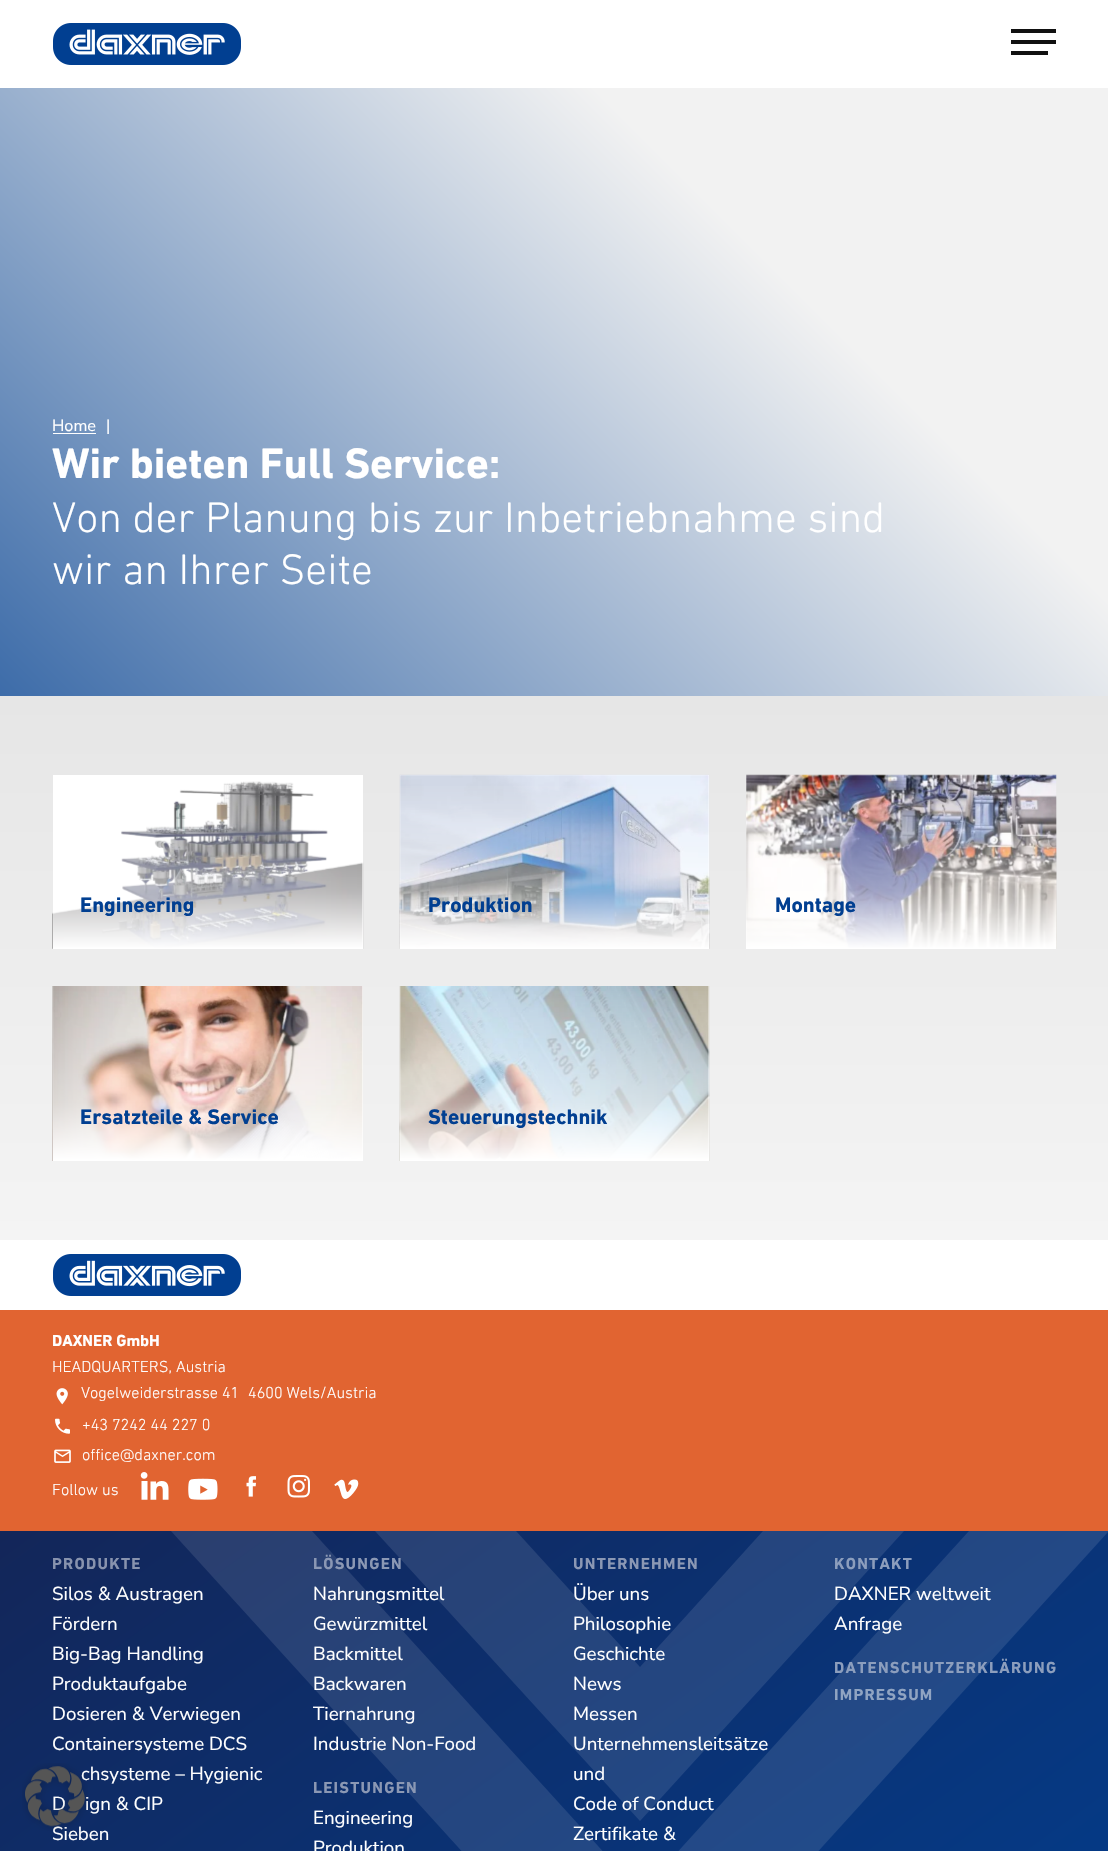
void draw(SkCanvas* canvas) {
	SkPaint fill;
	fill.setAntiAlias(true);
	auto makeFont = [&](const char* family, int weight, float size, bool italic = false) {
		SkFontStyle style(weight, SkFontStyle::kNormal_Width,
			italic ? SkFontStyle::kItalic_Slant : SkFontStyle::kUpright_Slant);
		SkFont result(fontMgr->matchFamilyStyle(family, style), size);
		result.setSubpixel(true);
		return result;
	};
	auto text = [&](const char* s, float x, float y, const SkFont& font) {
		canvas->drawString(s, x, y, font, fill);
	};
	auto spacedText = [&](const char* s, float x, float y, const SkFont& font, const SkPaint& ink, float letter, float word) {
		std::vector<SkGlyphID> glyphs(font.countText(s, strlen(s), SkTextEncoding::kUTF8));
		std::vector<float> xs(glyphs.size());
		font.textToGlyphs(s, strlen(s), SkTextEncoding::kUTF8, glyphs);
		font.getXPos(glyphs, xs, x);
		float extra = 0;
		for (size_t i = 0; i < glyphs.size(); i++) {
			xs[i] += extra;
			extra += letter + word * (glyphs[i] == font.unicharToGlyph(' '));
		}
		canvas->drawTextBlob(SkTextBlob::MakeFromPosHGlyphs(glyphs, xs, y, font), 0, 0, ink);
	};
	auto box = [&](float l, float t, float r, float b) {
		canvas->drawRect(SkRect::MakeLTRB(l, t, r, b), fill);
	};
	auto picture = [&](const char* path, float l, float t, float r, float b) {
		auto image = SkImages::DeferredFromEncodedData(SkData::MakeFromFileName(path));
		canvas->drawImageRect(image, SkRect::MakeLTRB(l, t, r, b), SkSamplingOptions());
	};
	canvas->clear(0xFFFFFFFF);
	picture("image0.png", 53, 23, 241, 65);
	fill.setColor(0xFF111111);
	box(1011, 29, 1056, 33);
	box(1011, 40, 1056, 44);
	box(1011, 51, 1048, 55);
	{
		const SkColor colors[] = {0xFF3D6CA9, 0xFFF2F2F2};
		const float stops[] = {0, 0.7f};
		const SkPoint ends[] = {{124, 821}, {984, -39}};
		fill.setShader(SkGradientShader::MakeLinear(ends, colors, stops, 2, SkTileMode::kClamp));
		fill.setAlpha(255);
	}
	box(0, 88, 1108, 696);
	fill.setShader(nullptr);
	fill.setColor(0xFFFFFFFF);
	box(53, 433, 96, 434);
	{
		const SkColor colors[] = {0xFFF4F4F4, 0xFFE6E6E6};
		const float stops[] = {0, 1};
		const SkPoint ends[] = {{554, 1240}, {554, 696}};
		fill.setShader(SkGradientShader::MakeLinear(ends, colors, stops, 2, SkTileMode::kClamp));
		fill.setAlpha(255);
	}
	box(0, 696, 1108, 1240);
	fill.setShader(nullptr);
	fill.setColor(0xFFFFFFFF);
	box(53, 775, 363, 948);
	picture("image1.png", 52, 781, 364, 949);
	{
		const SkColor colors[] = {0xFFFFFFFF, 0x80FFFFFF, 0x00FFFFFF};
		const float stops[] = {0, 0.33f, 1};
		const SkPoint ends[] = {{208, 949}, {208, 775}};
		fill.setShader(SkGradientShader::MakeLinear(ends, colors, stops, 3, SkTileMode::kClamp));
		fill.setAlpha(255);
	}
	box(53, 783, 363, 949);
	fill.setShader(nullptr);
	fill.setColor(0xFFFFFFFF);
	box(400, 775, 709, 948);
	picture("image2.png", 399, 774, 710, 949);
	{
		const SkColor colors[] = {0xFFFFFFFF, 0x80FFFFFF, 0x00FFFFFF};
		const float stops[] = {0, 0.33f, 1};
		const SkPoint ends[] = {{554, 949}, {554, 775}};
		fill.setShader(SkGradientShader::MakeLinear(ends, colors, stops, 3, SkTileMode::kClamp));
		fill.setAlpha(255);
	}
	box(400, 786, 709, 949);
	fill.setShader(nullptr);
	fill.setColor(0xFFFFFFFF);
	box(746, 775, 1056, 948);
	picture("image3.png", 746, 774, 1057, 949);
	{
		const SkColor colors[] = {0xFFFFFFFF, 0x80FFFFFF, 0x00FFFFFF};
		const float stops[] = {0, 0.33f, 1};
		const SkPoint ends[] = {{901, 949}, {901, 775}};
		fill.setShader(SkGradientShader::MakeLinear(ends, colors, stops, 3, SkTileMode::kClamp));
		fill.setAlpha(255);
	}
	box(746, 780, 1056, 949);
	fill.setShader(nullptr);
	fill.setColor(0xFFFFFFFF);
	box(53, 986, 363, 1160);
	picture("image4.png", 52, 986, 363, 1161);
	{
		const SkColor colors[] = {0xFFFFFFFF, 0x80FFFFFF, 0x00FFFFFF};
		const float stops[] = {0, 0.33f, 1};
		const SkPoint ends[] = {{208, 1161}, {208, 986}};
		fill.setShader(SkGradientShader::MakeLinear(ends, colors, stops, 3, SkTileMode::kClamp));
		fill.setAlpha(255);
	}
	box(53, 991, 363, 1161);
	fill.setShader(nullptr);
	fill.setColor(0xFFFFFFFF);
	box(400, 986, 709, 1160);
	picture("image5.png", 399, 986, 710, 1161);
	{
		const SkColor colors[] = {0xFFFFFFFF, 0x80FFFFFF, 0x00FFFFFF};
		const float stops[] = {0, 0.33f, 1};
		const SkPoint ends[] = {{554, 1161}, {554, 986}};
		fill.setShader(SkGradientShader::MakeLinear(ends, colors, stops, 3, SkTileMode::kClamp));
		fill.setAlpha(255);
	}
	box(400, 991, 709, 1161);
	picture("image6.png", 53, 1254, 241, 1296);
	fill.setShader(nullptr);
	fill.setColor(0xFFE16431);
	box(0, 1310, 1108, 1531);
	picture("image7.png", 56, 1388, 68, 1405);
	picture("image8.png", 55, 1418, 70, 1434);
	picture("image9.png", 54, 1449, 71, 1463);
	picture("image10.png", 140, 1472, 169, 1500);
	picture("image11.png", 188, 1478, 218, 1500);
	picture("image12.png", 246, 1476, 256, 1497);
	picture("image13.png", 287, 1475, 310, 1498);
	picture("image14.png", 334, 1479, 359, 1499);
	{
		const SkColor colors[] = {0xFF132659, 0xFF013F91};
		const float stops[] = {0, 1};
		const SkPoint ends[] = {{212, 1377}, {897, 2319}};
		fill.setShader(SkGradientShader::MakeLinear(ends, colors, stops, 2, SkTileMode::kClamp));
		fill.setAlpha(255);
	}
	box(0, 1531, 1108, 1851);
	fill.setShader(nullptr);
	fill.setColor(0x1AFFFFFF);
	canvas->drawPath(SkPathBuilder(SkPathFillType::kEvenOdd).moveTo(969, 1531).lineTo(673, 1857).lineTo(952, 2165).lineTo(1093, 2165).lineTo(813, 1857).lineTo(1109, 1531).close().moveTo(763, 1531).lineTo(640, 1667).lineTo(516, 1531).lineTo(375, 1531).lineTo(640, 1821).lineTo(904, 1531).close().moveTo(171, 1531).lineTo(467, 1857).lineTo(188, 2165).lineTo(328, 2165).lineTo(608, 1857).lineTo(312, 1531).close().moveTo(392, 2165).lineTo(533, 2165).lineTo(640, 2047).lineTo(747, 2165).lineTo(887, 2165).lineTo(640, 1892).close().detach(), fill);
	auto font1 = makeFont("Nunito Sans", 400, 16.25f);
	fill.setColor(0xFFFFFFFF);
	text("Home", 52, 431, font1);
	text("|", 106, 431, font1);
	auto font2 = makeFont("DIN Next", 700, 43.4f);
	text("Wir bieten Full Service:", 52, 478, font2);
	auto font3 = makeFont("DIN Next", 300, 43.4f);
	text("Von der Planung bis zur Inbetriebnahme sind", 52, 532, font3);
	text("wir an Ihrer Seite", 52, 584, font3);
	auto font4 = makeFont("DIN Next", 700, 21.5f);
	fill.setColor(0xFF013F91);
	text("Engineering", 80, 912, font4);
	text("Produktion", 428, 912, font4);
	text("Montage", 775, 912, font4);
	text("Ersatzteile & Service", 80, 1124, font4);
	text("Steuerungstechnik", 428, 1124, font4);
	auto font5 = makeFont("DIN Next", 700, 16.25f);
	fill.setColor(0xFFFFFFFF);
	text("DAXNER GmbH", 52, 1346, font5);
	auto font6 = makeFont("DIN Next", 300, 16.25f);
	text("HEADQUARTERS, Austria", 52, 1372, font6);
	text("Vogelweiderstrasse 41", 81, 1398, font6);
	text("4600 Wels/Austria", 248, 1398, font6);
	text("+43 7242 44 227 0", 82, 1430, font6);
	text("office@daxner.com", 82, 1460, font6);
	text("Follow us", 52, 1495, font6);
	fill.setColor(0xFF8893AE);
	spacedText("PRODUKTE", 52, 1569, font5, fill, 1.25f, 0);
	auto font7 = makeFont("Nunito Sans", 400, 18.75f);
	fill.setColor(0xFFFFFFFF);
	text("Silos & Austragen", 52, 1600, font7);
	text("Fördern", 52, 1630, font7);
	text("Big-Bag Handling", 52, 1660, font7);
	text("Produktaufgabe", 52, 1690, font7);
	text("Dosieren & Verwiegen", 52, 1720, font7);
	text("Containersysteme DCS", 52, 1750, font7);
	text("chsysteme – Hygienic", 81, 1780, font7);
	text("D", 52, 1810, font7);
	text("ign & CIP", 85, 1810, font7);
	text("Sieben", 52, 1840, font7);
	fill.setColor(0xFF8B98B4);
	spacedText("LÖSUNGEN", 313, 1569, font5, fill, 1.25f, 0);
	fill.setColor(0xFFFFFFFF);
	text("Nahrungsmittel", 313, 1600, font7);
	text("Gewürzmittel", 313, 1630, font7);
	text("Backmittel", 313, 1660, font7);
	text("Backwaren", 313, 1690, font7);
	text("Tiernahrung", 313, 1720, font7);
	text("Industrie Non-Food", 313, 1750, font7);
	fill.setColor(0xFF8B98B4);
	spacedText("LEISTUNGEN", 313, 1793, font5, fill, 1.25f, 0);
	fill.setColor(0xFFFFFFFF);
	text("Engineering", 313, 1824, font7);
	text("Produktion", 313, 1854, font7);
	fill.setColor(0xFF8B98B4);
	spacedText("UNTERNEHMEN", 573, 1569, font5, fill, 1.25f, 0);
	fill.setColor(0xFFFFFFFF);
	text("Über uns", 573, 1600, font7);
	text("Philosophie", 573, 1630, font7);
	text("Geschichte", 573, 1660, font7);
	text("News", 573, 1690, font7);
	text("Messen", 573, 1720, font7);
	text("Unternehmensleitsätze", 573, 1750, font7);
	text("und", 573, 1780, font7);
	text("Code of Conduct", 573, 1810, font7);
	text("Zertifikate &", 573, 1840, font7);
	fill.setColor(0xFF8C9EBD);
	spacedText("KONTAKT", 834, 1569, font5, fill, 1.25f, 0);
	fill.setColor(0xFFFFFFFF);
	text("DAXNER weltweit", 834, 1600, font7);
	text("Anfrage", 834, 1630, font7);
	fill.setColor(0xFF8C9EBD);
	spacedText("DATENSCHUTZERKLÄRUNG", 834, 1673, font5, fill, 1.25f, 0);
	fill.setColor(0xFF90A4C2);
	spacedText("IMPRESSUM", 834, 1700, font5, fill, 1.25f, 0);
	picture("image15.png", 22, 1763, 88, 1831);
}
